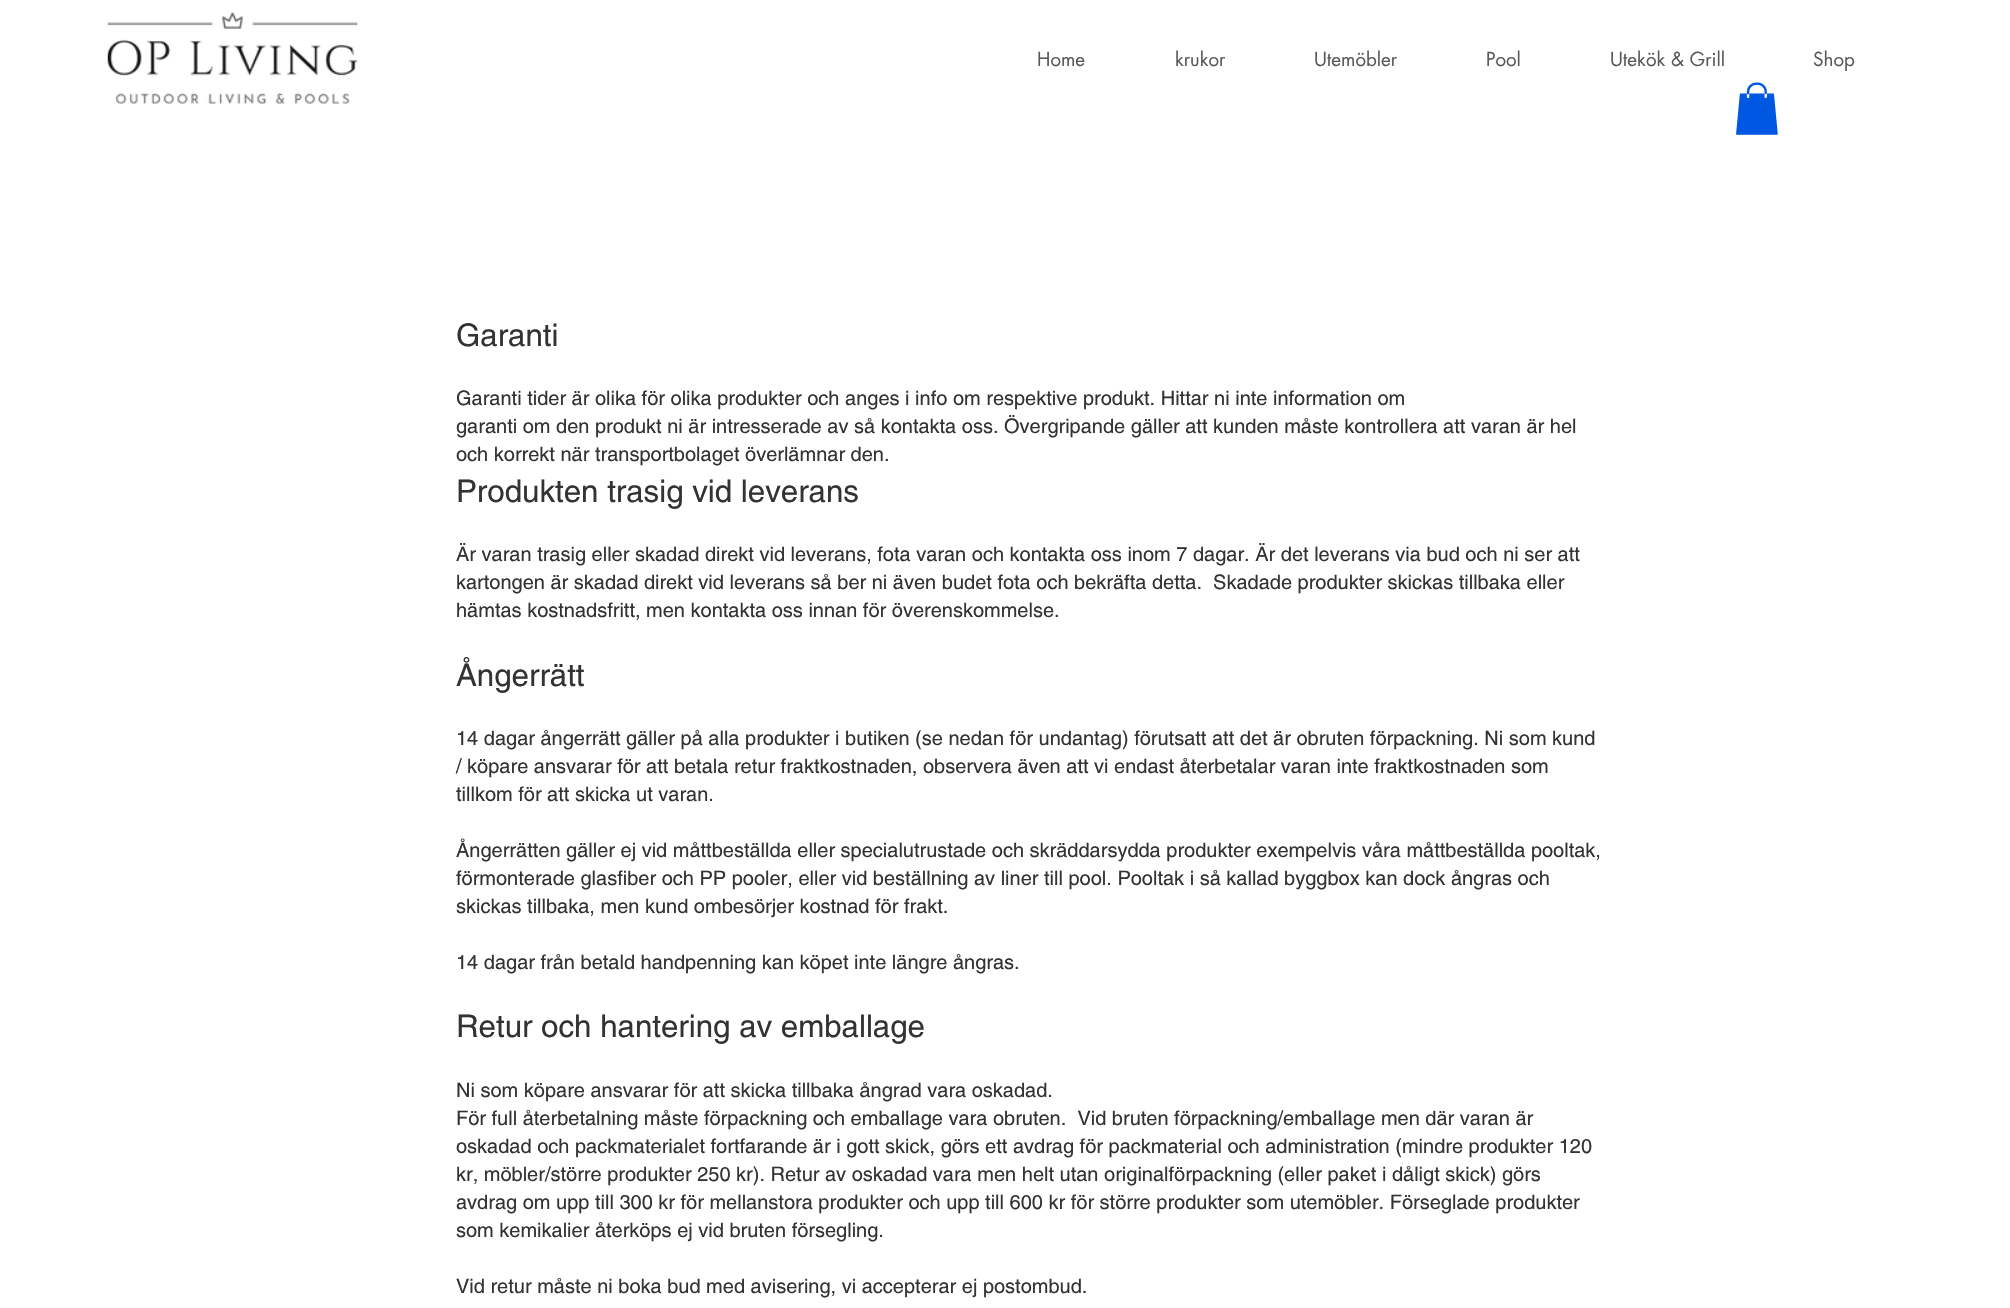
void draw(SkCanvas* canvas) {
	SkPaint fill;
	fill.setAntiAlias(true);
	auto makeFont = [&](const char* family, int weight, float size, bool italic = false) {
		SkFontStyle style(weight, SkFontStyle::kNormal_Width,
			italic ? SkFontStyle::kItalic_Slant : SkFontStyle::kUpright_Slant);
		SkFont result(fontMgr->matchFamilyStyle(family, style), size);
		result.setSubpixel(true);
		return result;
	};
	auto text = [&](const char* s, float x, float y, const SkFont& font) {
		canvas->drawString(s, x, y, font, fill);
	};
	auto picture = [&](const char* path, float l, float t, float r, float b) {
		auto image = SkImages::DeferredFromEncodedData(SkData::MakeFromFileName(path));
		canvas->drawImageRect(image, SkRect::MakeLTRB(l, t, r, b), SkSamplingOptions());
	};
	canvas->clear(0xFFFFFFFF);
	picture("image0.png", 107, 12, 358, 104);
	picture("image1.png", 1736, 82, 1778, 135);
	auto font1 = makeFont("futura", 400, 18.75f);
	fill.setColor(0xFF595959);
	text("Home", 1037, 66, font1);
	text("krukor", 1175, 66, font1);
	text("Utemöbler", 1314, 66, font1);
	text("Pool", 1486, 66, font1);
	text("Utekök & Grill", 1610, 66, font1);
	text("Shop", 1813, 66, font1);
	auto font2 = makeFont("helvetica", 400, 31.25f);
	fill.setColor(0xFF333333);
	text("Garanti", 456, 346, font2);
	auto font3 = makeFont("helvetica", 400, 20);
	text("Garanti tider är olika för olika produkter och anges i info om respektive produkt. Hittar ni inte information om", 456, 405, font3);
	text("garanti om den produkt ni är intresserade av så kontakta oss. Övergripande gäller att kunden måste kontrollera att varan är hel", 456, 433, font3);
	text("och korrekt när transportbolaget överlämnar den.", 456, 461, font3);
	text("Produkten trasig vid leverans", 456, 502, font2);
	text("Är varan trasig eller skadad direkt vid leverans, fota varan och kontakta oss inom 7 dagar. Är det leverans via bud och ni ser att", 456, 561, font3);
	text("kartongen är skadad direkt vid leverans så ber ni även budet fota och bekräfta detta.  Skadade produkter skickas tillbaka eller", 456, 589, font3);
	text("hämtas kostnadsfritt, men kontakta oss innan för överenskommelse.", 456, 617, font3);
	text("Ångerrätt", 456, 686, font2);
	text("14 dagar ångerrätt gäller på alla produkter i butiken (se nedan för undantag) förutsatt att det är obruten förpackning. Ni som kund", 456, 745, font3);
	text("/ köpare ansvarar för att betala retur fraktkostnaden, observera även att vi endast återbetalar varan inte fraktkostnaden som", 456, 773, font3);
	text("tillkom för att skicka ut varan.", 456, 801, font3);
	text("Ångerrätten gäller ej vid måttbeställda eller specialutrustade och skräddarsydda produkter exempelvis våra måttbeställda pooltak,", 456, 857, font3);
	text("förmonterade glasfiber och PP pooler, eller vid beställning av liner till pool. Pooltak i så kallad byggbox kan dock ångras och", 456, 885, font3);
	text("skickas tillbaka, men kund ombesörjer kostnad för frakt.", 456, 913, font3);
	text("14 dagar från betald handpenning kan köpet inte längre ångras.", 456, 969, font3);
	text("Retur och hantering av emballage", 456, 1037, font2);
	text("Ni som köpare ansvarar för att skicka tillbaka ångrad vara oskadad.", 456, 1097, font3);
	text("För full återbetalning måste förpackning och emballage vara obruten.  Vid bruten förpackning/emballage men där varan är", 456, 1125, font3);
	text("oskadad och packmaterialet fortfarande är i gott skick, görs ett avdrag för packmaterial och administration (mindre produkter 120", 456, 1153, font3);
	text("kr, möbler/större produkter 250 kr). Retur av oskadad vara men helt utan originalförpackning (eller paket i dåligt skick) görs", 456, 1181, font3);
	text("avdrag om upp till 300 kr för mellanstora produkter och upp till 600 kr för större produkter som utemöbler. Förseglade produkter", 456, 1209, font3);
	text("som kemikalier återköps ej vid bruten försegling.", 456, 1237, font3);
	text("Vid retur måste ni boka bud med avisering, vi accepterar ej postombud.", 456, 1293, font3);
}
